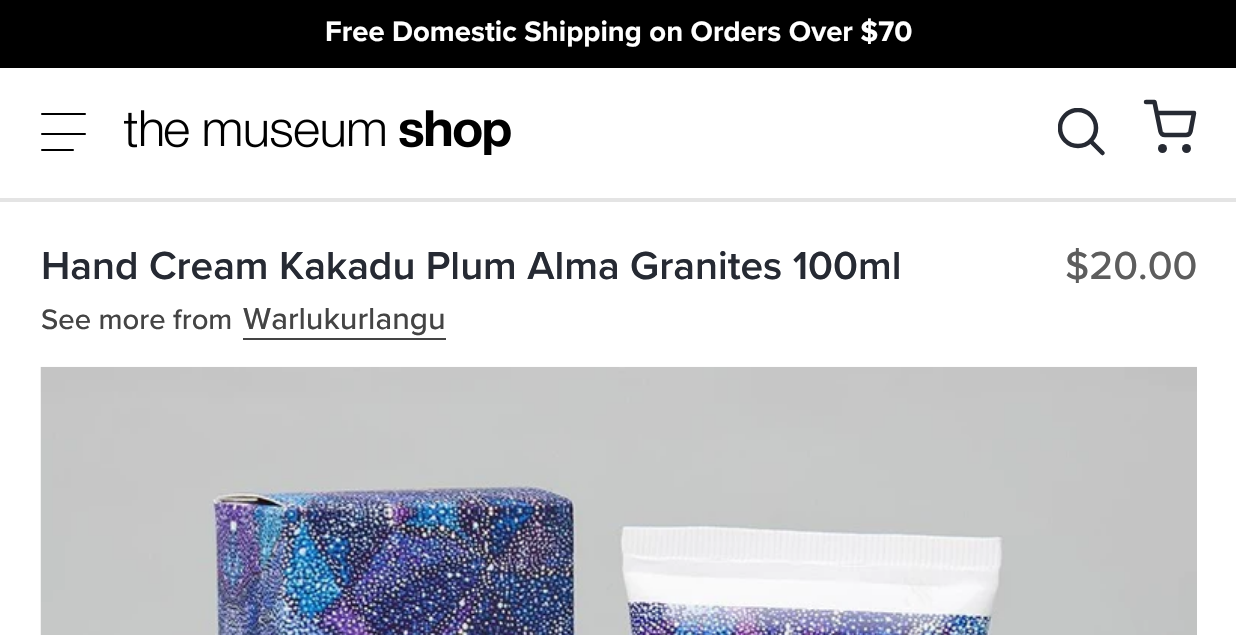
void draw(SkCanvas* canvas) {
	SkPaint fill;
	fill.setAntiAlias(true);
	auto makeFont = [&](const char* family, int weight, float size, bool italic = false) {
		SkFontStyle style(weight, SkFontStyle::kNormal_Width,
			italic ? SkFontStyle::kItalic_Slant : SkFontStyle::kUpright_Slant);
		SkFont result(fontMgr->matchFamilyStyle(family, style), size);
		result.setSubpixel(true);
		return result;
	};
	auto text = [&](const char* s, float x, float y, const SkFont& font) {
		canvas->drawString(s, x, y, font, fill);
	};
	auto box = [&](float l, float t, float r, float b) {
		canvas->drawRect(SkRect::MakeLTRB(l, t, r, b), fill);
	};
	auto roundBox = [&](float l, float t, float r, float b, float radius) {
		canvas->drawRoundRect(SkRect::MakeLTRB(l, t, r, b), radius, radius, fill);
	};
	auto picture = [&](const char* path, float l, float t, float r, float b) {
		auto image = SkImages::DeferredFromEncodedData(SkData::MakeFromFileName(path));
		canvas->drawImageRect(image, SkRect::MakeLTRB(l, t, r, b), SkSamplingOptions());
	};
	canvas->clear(0xFFFFFFFF);
	fill.setColor(0xFF000000);
	box(0, 0, 1236, 68);
	roundBox(41, 113, 86, 115, 1);
	roundBox(41, 133, 86, 135, 1);
	roundBox(41, 149, 74, 151, 1);
	picture("image0.png", 124, 110, 511, 155);
	canvas->save();
	canvas->clipRect(SkRect::MakeLTRB(1058, 108, 1105, 155));
	fill.setStyle(SkPaint::kStroke_Style);
	fill.setStrokeWidth(4.5f);
	fill.setColor(0xFF262A33);
	canvas->drawCircle(1078, 128, 18, fill);
	canvas->restore();
	fill.setStrokeCap(SkPaint::kRound_Cap);
	fill.setStrokeJoin(SkPaint::kRound_Join);
	canvas->drawPath(SkPathBuilder().moveTo(1102.5f, 153).lineTo(1090.5f, 141).detach(), fill);
	fill.setStyle(SkPaint::kFill_Style);
	canvas->drawCircle(1162.5f, 148.5f, 4.5f, fill);
	canvas->drawCircle(1186.5f, 148.5f, 4.5f, fill);
	fill.setStyle(SkPaint::kStroke_Style);
	canvas->drawPath(SkPathBuilder().moveTo(1146, 102).lineTo(1154.5f, 102).lineTo(1160.5f, 131.5f).cubicTo(1161, 133.5f, 1163, 135, 1165, 135).lineTo(1186, 135).cubicTo(1188.5f, 135, 1190, 133.5f, 1190.5f, 131.5f).lineTo(1194, 113).lineTo(1157, 113).detach(), fill);
	fill.setStyle(SkPaint::kFill_Style);
	fill.setColor(0xFFE4E4E4);
	box(0, 198, 1236, 202);
	fill.setColor(0xFF444444);
	box(243, 338, 446, 340);
	picture("image1.png", 40, 366, 1197, 635);
	auto font1 = makeFont("Proxima Nova", 700, 29.25f);
	fill.setColor(0xFFFFFFFF);
	text("Free Domestic Shipping on Orders Over $70", 325, 41, font1);
	auto font2 = makeFont("Proxima Nova", 600, 40.5f);
	fill.setColor(0xFF262A33);
	text("Hand Cream Kakadu Plum Alma Granites 100ml", 41, 279, font2);
	auto font3 = makeFont("Proxima Nova", 500, 40.5f);
	fill.setColor(0xFF5D5D5D);
	text("$20.00", 1065, 279, font3);
	auto font4 = makeFont("Proxima Nova", 500, 29.25f);
	fill.setColor(0xFF444444);
	text("See more from", 41, 329, font4);
	auto font5 = makeFont("Proxima Nova", 500, 31.5f);
	text("Warlukurlangu", 243, 329, font5);
}
